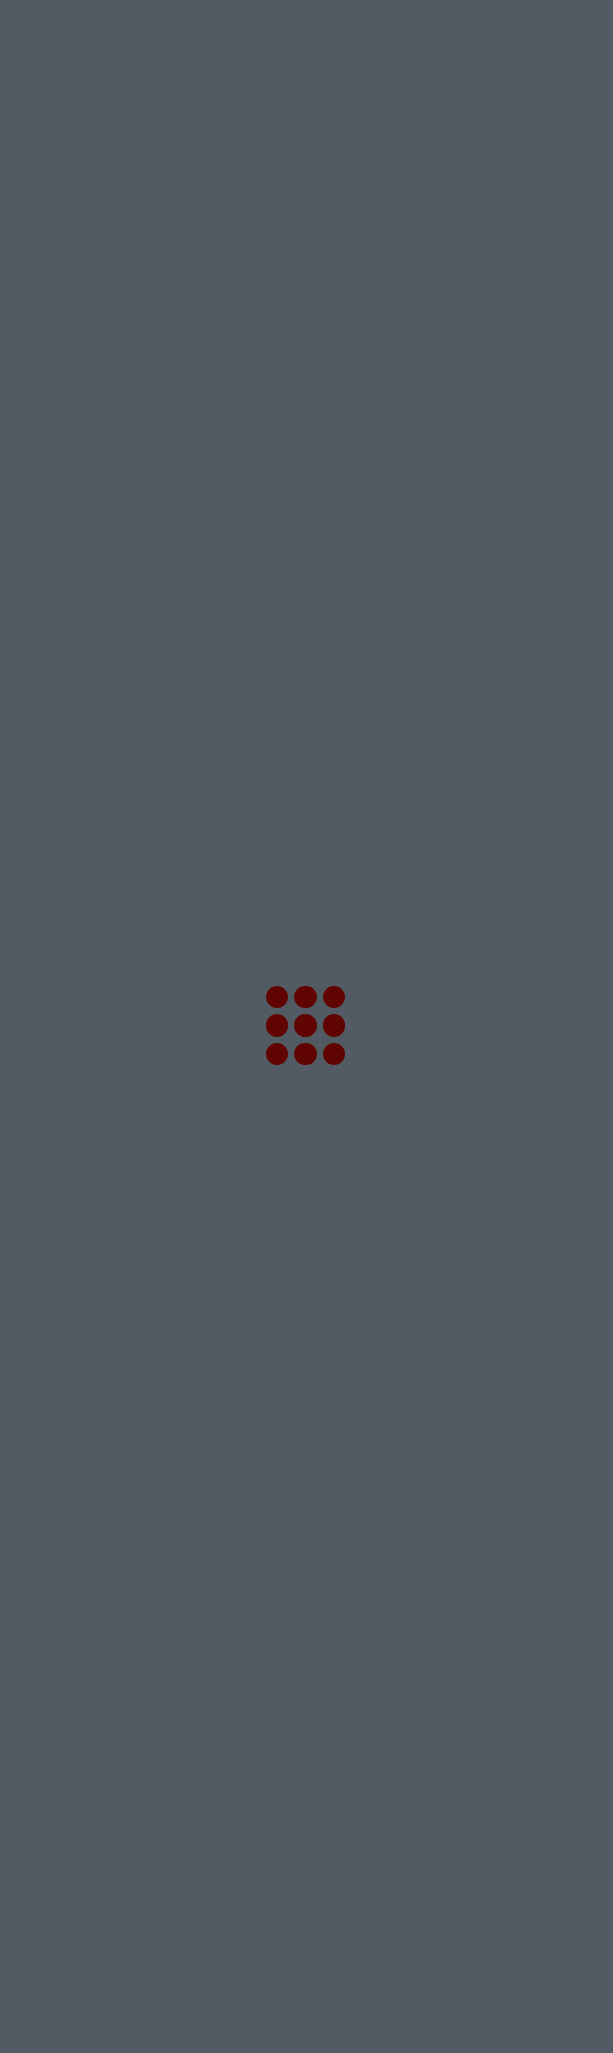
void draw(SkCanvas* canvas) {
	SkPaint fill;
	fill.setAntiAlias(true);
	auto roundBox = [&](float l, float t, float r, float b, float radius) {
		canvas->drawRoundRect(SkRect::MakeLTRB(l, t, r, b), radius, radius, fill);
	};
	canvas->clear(0xFF525B64);
	fill.setColor(0xFF5F0401);
	canvas->drawCircle(277, 997, 11, fill);
	roundBox(294, 986, 317, 1008, 11);
	canvas->drawCircle(334, 997, 11, fill);
	roundBox(266, 1014, 288, 1037, 11);
	canvas->drawCircle(305.5f, 1025.5f, 11.5f, fill);
	roundBox(323, 1014, 345, 1037, 11);
	canvas->drawCircle(277, 1054, 11, fill);
	roundBox(294, 1043, 317, 1065, 11);
	canvas->drawCircle(334, 1054, 11, fill);
}
